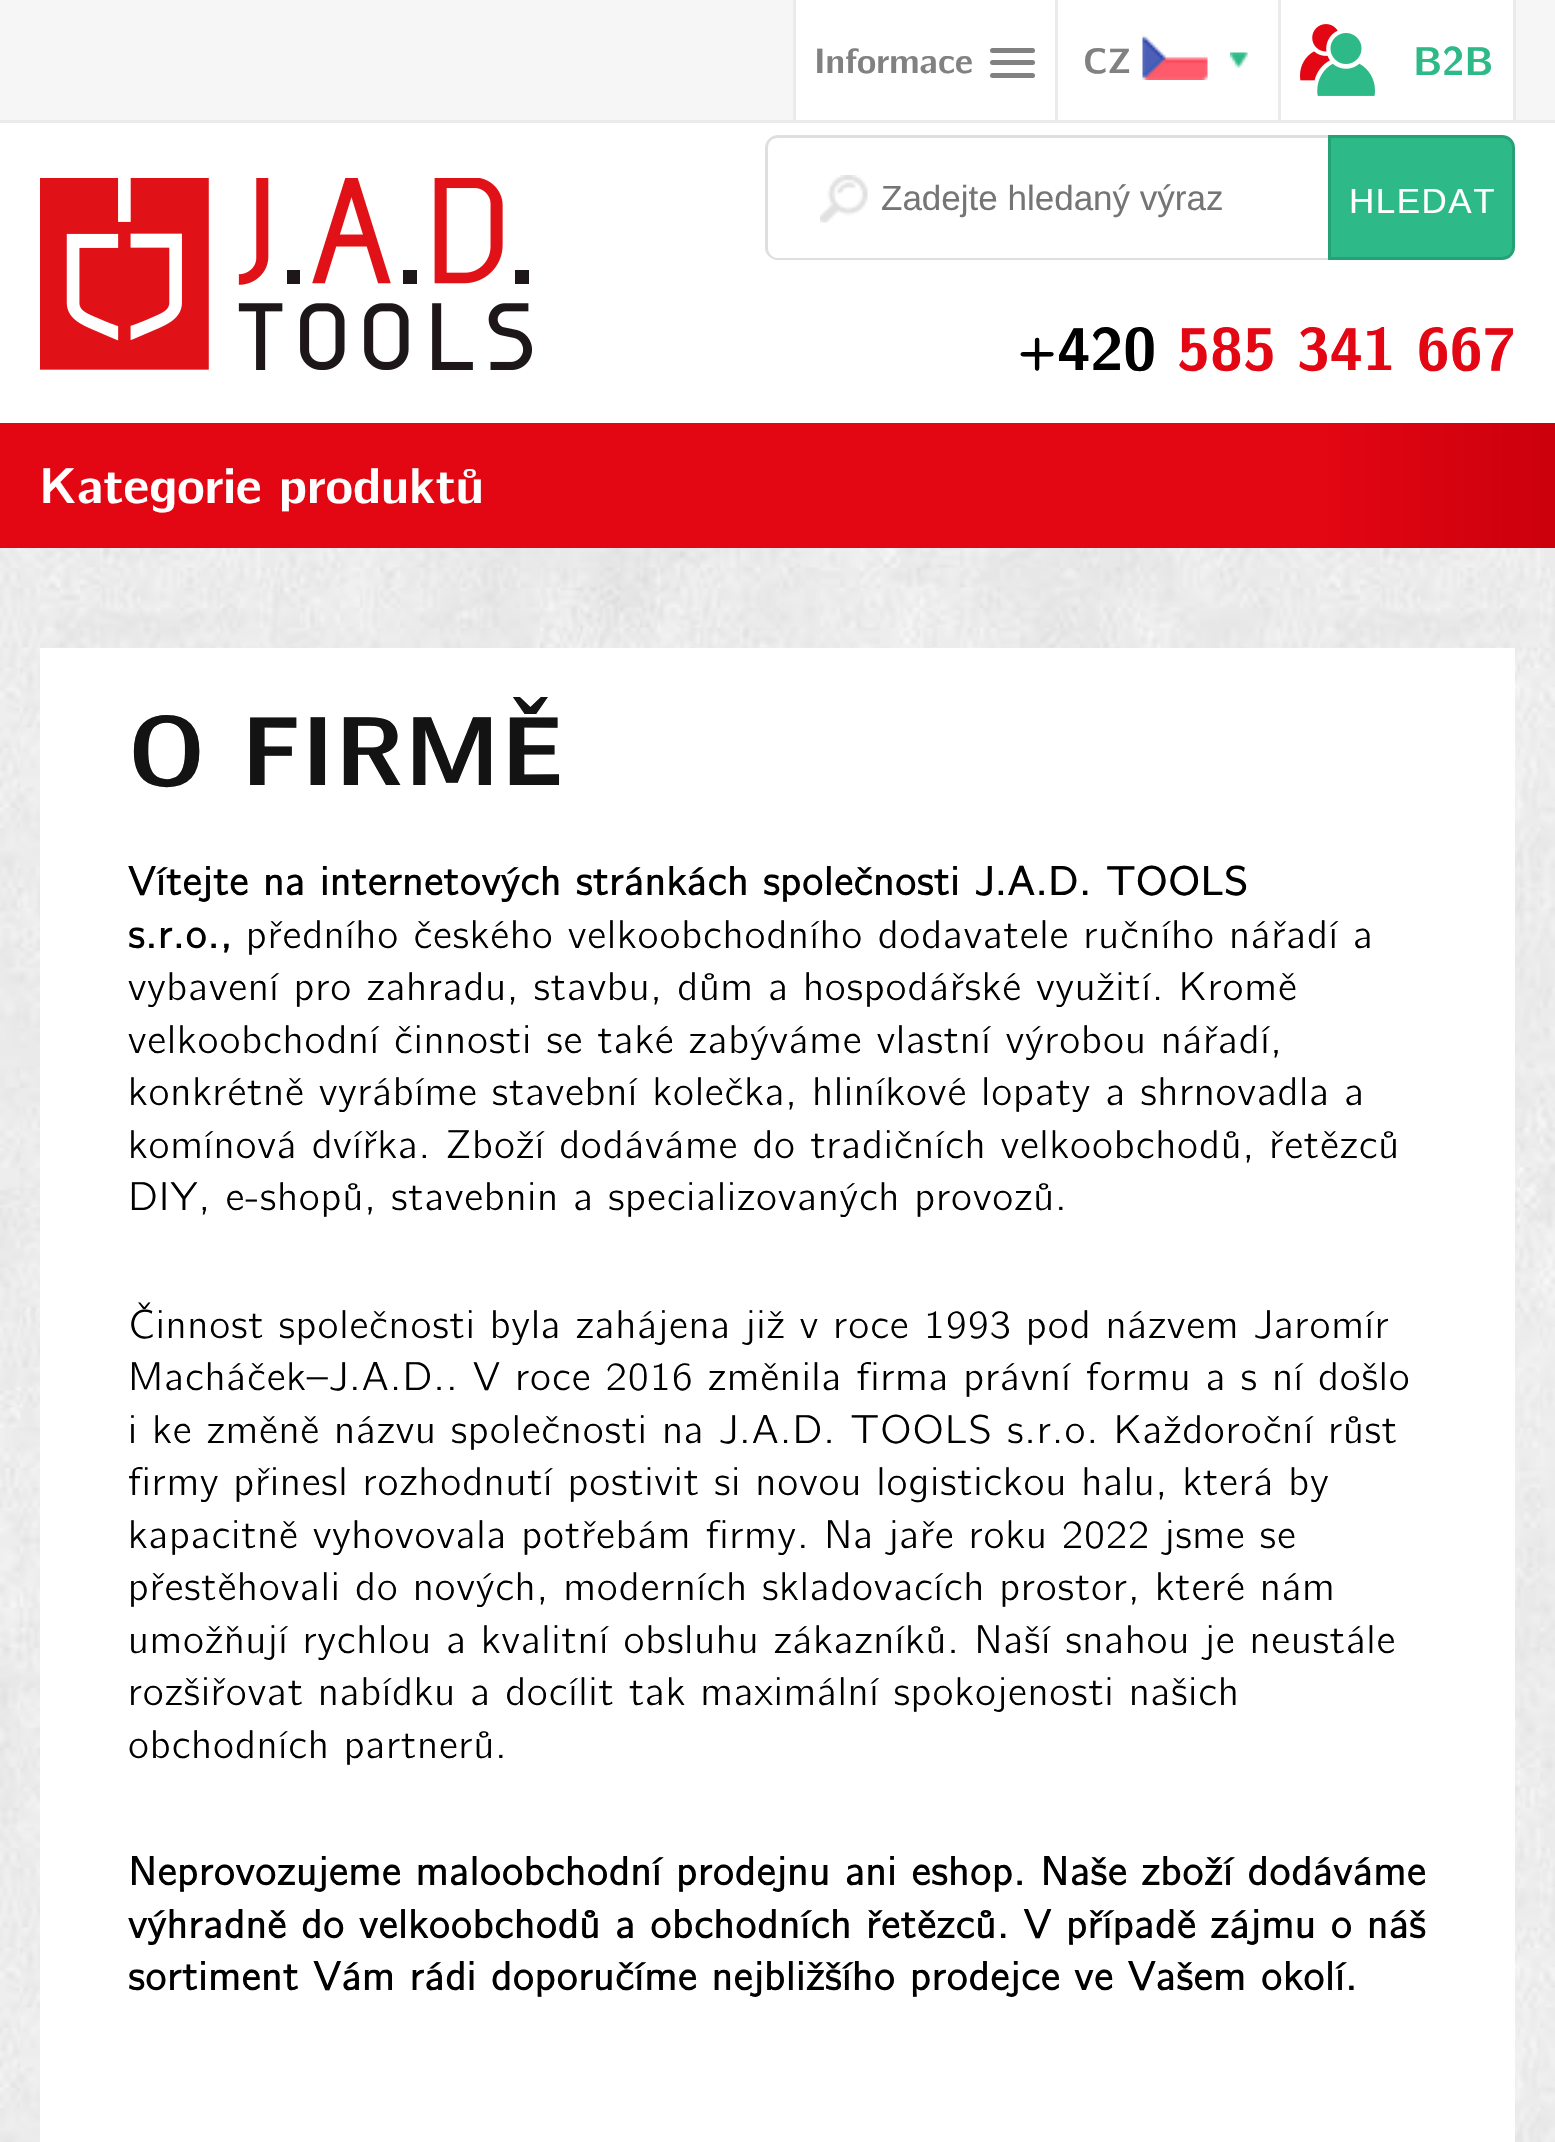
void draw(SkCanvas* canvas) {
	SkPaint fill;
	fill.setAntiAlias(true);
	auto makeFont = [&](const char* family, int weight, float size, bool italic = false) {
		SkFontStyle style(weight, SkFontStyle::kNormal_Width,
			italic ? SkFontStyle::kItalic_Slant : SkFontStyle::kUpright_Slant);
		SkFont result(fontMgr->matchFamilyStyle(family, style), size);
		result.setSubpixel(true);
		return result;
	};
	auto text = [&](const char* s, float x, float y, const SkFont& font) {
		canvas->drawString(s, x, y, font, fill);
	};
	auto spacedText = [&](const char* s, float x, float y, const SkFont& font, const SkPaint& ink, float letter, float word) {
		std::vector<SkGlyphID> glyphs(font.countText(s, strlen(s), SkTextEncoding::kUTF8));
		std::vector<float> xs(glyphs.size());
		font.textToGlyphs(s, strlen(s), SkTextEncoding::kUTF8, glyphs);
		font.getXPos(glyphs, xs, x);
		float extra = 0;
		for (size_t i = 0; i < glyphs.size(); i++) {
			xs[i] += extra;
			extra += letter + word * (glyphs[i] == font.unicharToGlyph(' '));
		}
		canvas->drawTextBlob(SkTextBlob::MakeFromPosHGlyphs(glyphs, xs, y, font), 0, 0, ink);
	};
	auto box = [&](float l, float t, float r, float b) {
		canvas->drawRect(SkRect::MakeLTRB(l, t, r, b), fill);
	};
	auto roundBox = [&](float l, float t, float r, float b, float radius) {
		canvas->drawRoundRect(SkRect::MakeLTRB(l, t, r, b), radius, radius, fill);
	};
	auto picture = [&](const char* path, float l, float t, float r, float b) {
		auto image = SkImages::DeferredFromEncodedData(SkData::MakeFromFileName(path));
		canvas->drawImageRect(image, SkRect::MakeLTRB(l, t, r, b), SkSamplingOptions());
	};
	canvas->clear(0xFFFFFFFF);
	fill.setColor(0xFFF6F6F6);
	box(0, 0, 1555, 120);
	fill.setColor(0xFFEBEBEB);
	box(0, 120, 1555, 123);
	fill.setColor(0xFFFFFFFF);
	box(796, 0, 1055, 120);
	fill.setColor(0xFFEBEBEB);
	box(793, 0, 796, 120);
	fill.setColor(0xFF818181);
	roundBox(990, 48, 1035, 53, 2.5f);
	roundBox(990, 60, 1035, 65, 2.5f);
	roundBox(990, 73, 1035, 78, 2.5f);
	fill.setColor(0xFFFFFFFF);
	box(1058, 0, 1278, 120);
	picture("image0.png", 1230, 52, 1248, 68);
	fill.setColor(0xFFEBEBEB);
	box(1278, 0, 1281, 120);
	box(1055, 0, 1058, 120);
	picture("image1.png", 1142, 35, 1208, 80);
	fill.setColor(0xFFFFFFFF);
	box(1281, 0, 1513, 120);
	fill.setColor(0xFFEBEBEB);
	box(1513, 0, 1516, 120);
	picture("image2.png", 1300, 24, 1375, 96);
	picture("image3.png", 40, 178, 532, 370);
	picture("image4.png", 820, 175, 868, 223);
	fill.setColor(0xFFDFDFDF);
	canvas->drawPath(SkPathBuilder(SkPathFillType::kEvenOdd).moveTo(778, 135).lineTo(1328, 135).lineTo(1328, 260).lineTo(778, 260).cubicTo(771, 260, 765, 254, 765, 248).lineTo(765, 148).cubicTo(765, 141, 771, 135, 778, 135).close().moveTo(778, 138).lineTo(1328, 138).lineTo(1328, 258).lineTo(778, 258).cubicTo(772, 258, 768, 253, 768, 248).lineTo(768, 148).cubicTo(768, 142, 772, 138, 778, 138).close().detach(), fill);
	fill.setColor(0xFF2EB988);
	canvas->drawPath(SkPathBuilder().moveTo(1329.5f, 136.5f).lineTo(1502, 136.5f).cubicTo(1508.5f, 136.5f, 1513.5f, 141.5f, 1513.5f, 148).lineTo(1513.5f, 247).cubicTo(1513.5f, 253.5f, 1508.5f, 258.5f, 1502, 258.5f).lineTo(1329.5f, 258.5f).close().detach(), fill);
	fill.setStyle(SkPaint::kStroke_Style);
	fill.setStrokeWidth(3);
	fill.setColor(0xFF24A275);
	canvas->drawPath(SkPathBuilder().moveTo(1329.5f, 136.5f).lineTo(1502, 136.5f).cubicTo(1508.5f, 136.5f, 1513.5f, 141.5f, 1513.5f, 148).lineTo(1513.5f, 247).cubicTo(1513.5f, 253.5f, 1508.5f, 258.5f, 1502, 258.5f).lineTo(1329.5f, 258.5f).close().detach(), fill);
	fill.setStyle(SkPaint::kFill_Style);
	{
		const SkColor colors[] = {0xFFE30613, 0xFFCB000C};
		const float stops[] = {0.85f, 1};
		const SkPoint ends[] = {{0, 485}, {1555, 485}};
		fill.setShader(SkGradientShader::MakeLinear(ends, colors, stops, 2, SkTileMode::kClamp));
		fill.setAlpha(255);
	}
	box(0, 423, 1555, 548);
	picture("image5.png", 0, 548, 1555, 2142);
	fill.setShader(nullptr);
	fill.setColor(0xFFFFFFFF);
	box(40, 648, 1515, 2142);
	auto font1 = makeFont("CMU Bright", 700, 35);
	fill.setColor(0xFF818181);
	text("Informace", 814, 73, font1);
	text("CZ", 1083, 73, font1);
	auto font2 = makeFont("CMU Bright", 700, 40);
	fill.setColor(0xFF2EB988);
	text("B2B", 1413, 75, font2);
	auto font3 = makeFont("Liberation Sans", 400, 35);
	fill.setColor(0xFF757575);
	text("Zadejte hledaný výraz", 881, 210, font3);
	fill.setColor(0xFFFFFFFF);
	spacedText("HLEDAT", 1349, 213, font3, fill, 1.5f, 0);
	auto font4 = makeFont("CMU Bright", 700, 60);
	fill.setColor(0xFF000000);
	text("+420", 1017, 370, font4);
	fill.setColor(0xFFE30613);
	text("585 341 667", 1177, 370, font4);
	auto font5 = makeFont("CMU Bright", 700, 50);
	fill.setColor(0xFFFFFFFF);
	text("Kategorie produktů", 39, 503, font5);
	auto font6 = makeFont("CMU Bright", 700, 97.5f);
	fill.setColor(0xFF131313);
	spacedText("O FIRMĚ", 128, 785, font6, fill, 1, 0);
	auto font7 = makeFont("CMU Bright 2", 700, 40);
	fill.setColor(0xFF000000);
	spacedText("Vítejte na internetových stránkách společnosti J.A.D. TOOLS", 128, 895, font7, fill, 1, 0);
	spacedText("s.r.o.,", 128, 948, font7, fill, 1, 0);
	auto font8 = makeFont("CMU Bright", 400, 40);
	spacedText("předního českého velkoobchodního dodavatele ručního nářadí a", 246, 948, font8, fill, 1, 0);
	spacedText("vybavení pro zahradu, stavbu, dům a hospodářské využití. Kromě", 128, 1000, font8, fill, 1, 0);
	spacedText("velkoobchodní činnosti se také zabýváme vlastní výrobou nářadí,", 128, 1053, font8, fill, 1, 0);
	spacedText("konkrétně vyrábíme stavební kolečka, hliníkové lopaty a shrnovadla a", 128, 1105, font8, fill, 1, 0);
	spacedText("komínová dvířka. Zboží dodáváme do tradičních velkoobchodů, řetězců", 128, 1158, font8, fill, 1, 0);
	spacedText("DIY, e-shopů, stavebnin a specializovaných provozů.", 128, 1210, font8, fill, 1, 0);
	spacedText("Činnost společnosti byla zahájena již v roce 1993 pod názvem Jaromír", 128, 1338, font8, fill, 1, 0);
	spacedText("Macháček–J.A.D.. V roce 2016 změnila firma právní formu a s ní došlo", 128, 1390, font8, fill, 1, 0);
	spacedText("i ke změně názvu společnosti na J.A.D. TOOLS s.r.o. Každoroční růst", 128, 1443, font8, fill, 1, 0);
	spacedText("firmy přinesl rozhodnutí postivit si novou logistickou halu, která by", 128, 1495, font8, fill, 1, 0);
	spacedText("kapacitně vyhovovala potřebám firmy. Na jaře roku 2022 jsme se", 128, 1548, font8, fill, 1, 0);
	spacedText("přestěhovali do nových, moderních skladovacích prostor, které nám", 128, 1600, font8, fill, 1, 0);
	spacedText("umožňují rychlou a kvalitní obsluhu zákazníků. Naší snahou je neustále", 128, 1653, font8, fill, 1, 0);
	spacedText("rozšiřovat nabídku a docílit tak maximální spokojenosti našich", 128, 1705, font8, fill, 1, 0);
	spacedText("obchodních partnerů.", 128, 1758, font8, fill, 1, 0);
	spacedText("Neprovozujeme maloobchodní prodejnu ani eshop. Naše zboží dodáváme", 128, 1885, font7, fill, 1, 0);
	spacedText("výhradně do velkoobchodů a obchodních řetězců. V případě zájmu o náš", 128, 1938, font7, fill, 1, 0);
	spacedText("sortiment Vám rádi doporučíme nejbližšího prodejce ve Vašem okolí.", 128, 1990, font7, fill, 1, 0);
}
